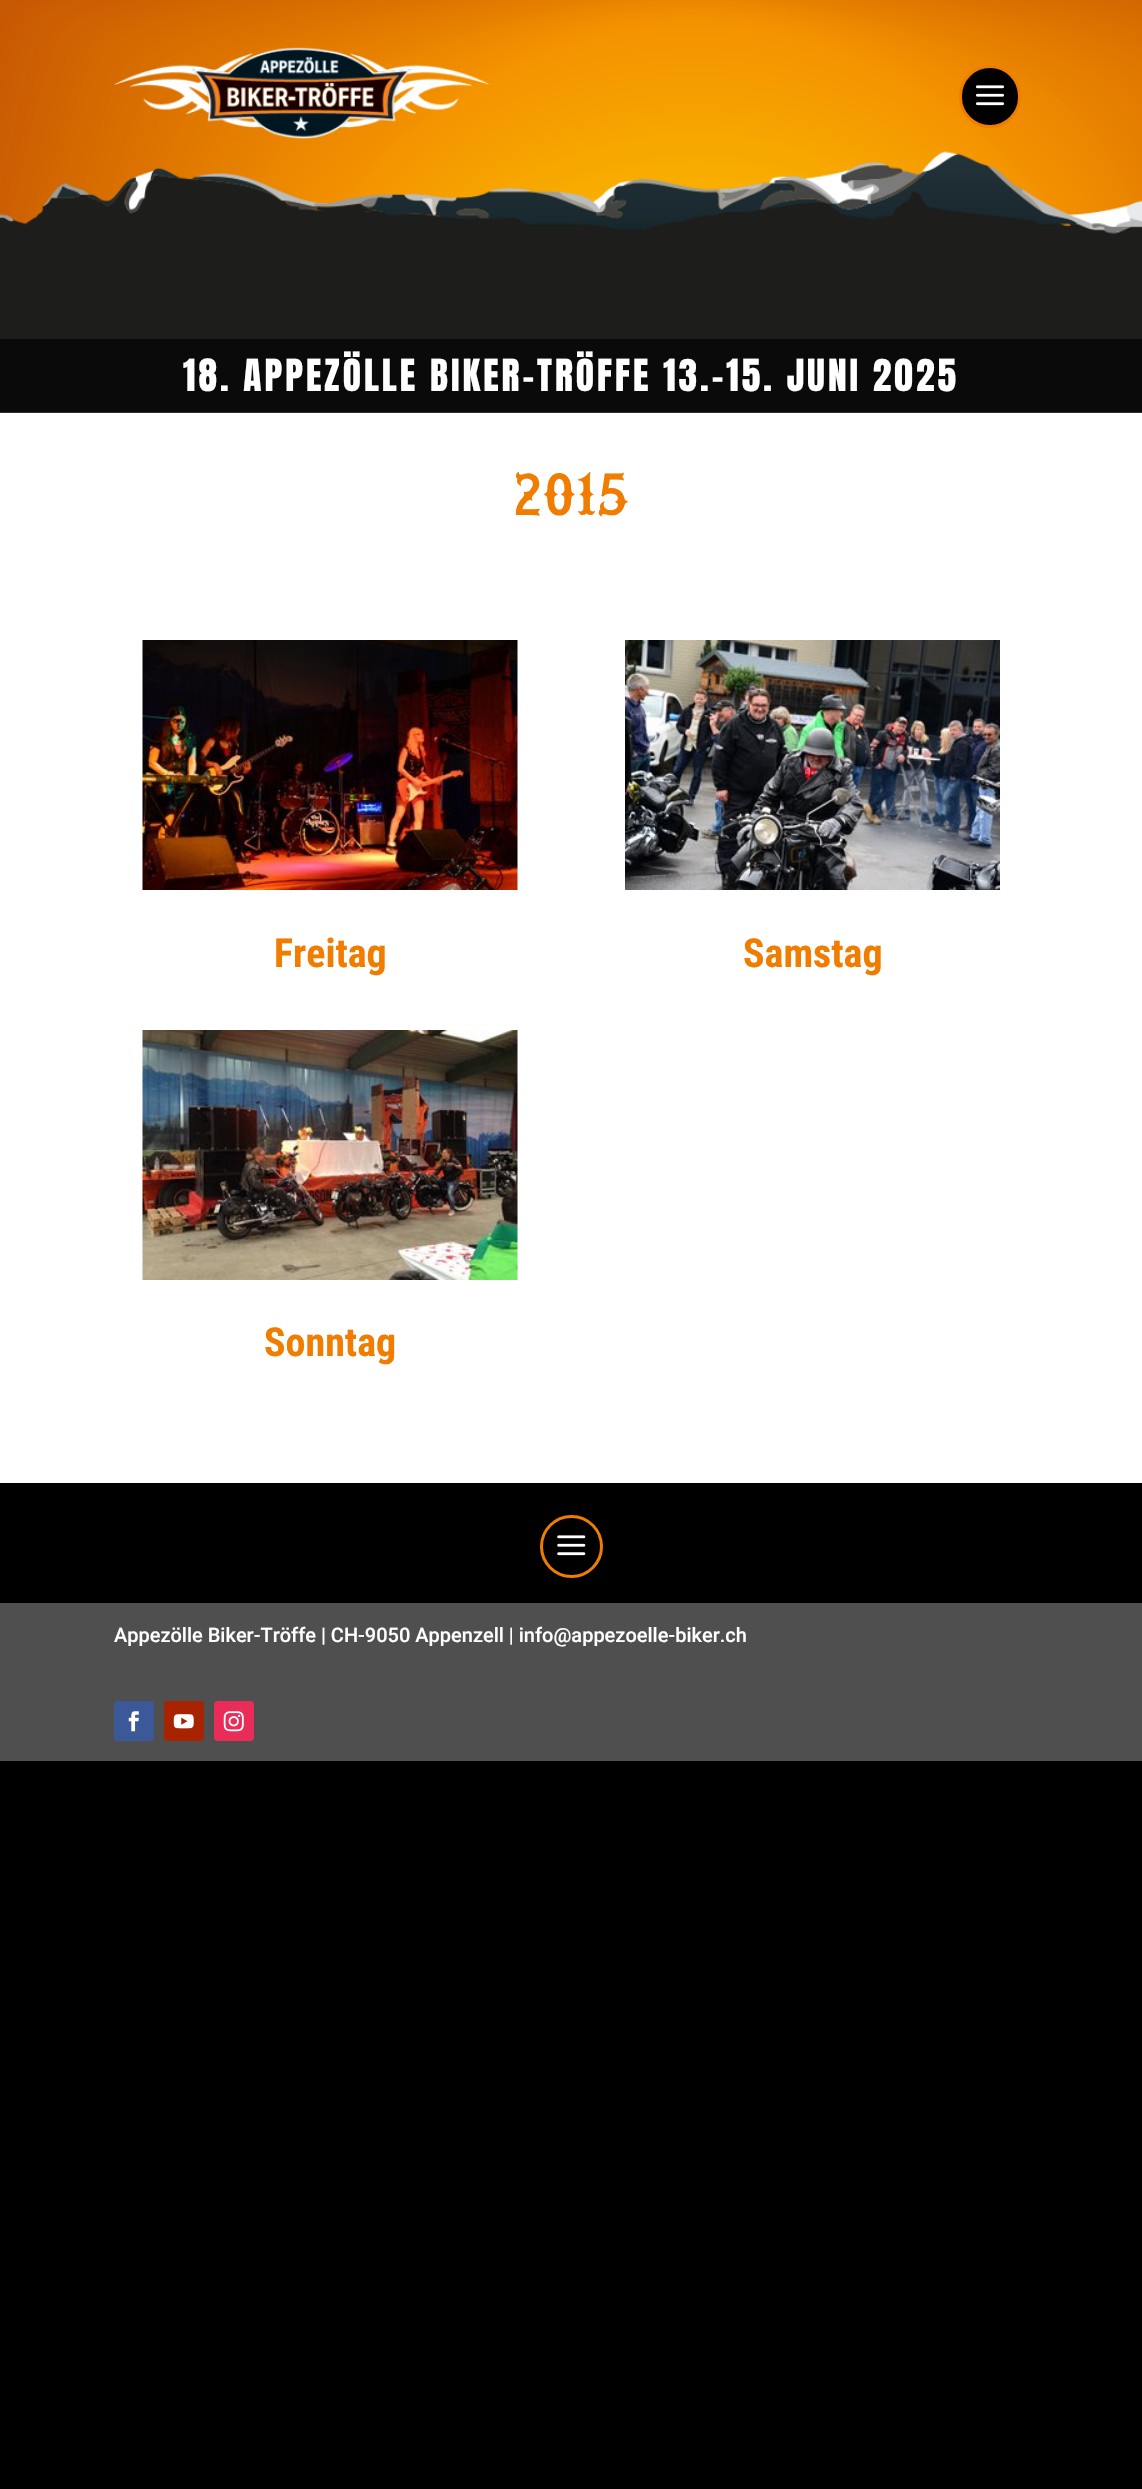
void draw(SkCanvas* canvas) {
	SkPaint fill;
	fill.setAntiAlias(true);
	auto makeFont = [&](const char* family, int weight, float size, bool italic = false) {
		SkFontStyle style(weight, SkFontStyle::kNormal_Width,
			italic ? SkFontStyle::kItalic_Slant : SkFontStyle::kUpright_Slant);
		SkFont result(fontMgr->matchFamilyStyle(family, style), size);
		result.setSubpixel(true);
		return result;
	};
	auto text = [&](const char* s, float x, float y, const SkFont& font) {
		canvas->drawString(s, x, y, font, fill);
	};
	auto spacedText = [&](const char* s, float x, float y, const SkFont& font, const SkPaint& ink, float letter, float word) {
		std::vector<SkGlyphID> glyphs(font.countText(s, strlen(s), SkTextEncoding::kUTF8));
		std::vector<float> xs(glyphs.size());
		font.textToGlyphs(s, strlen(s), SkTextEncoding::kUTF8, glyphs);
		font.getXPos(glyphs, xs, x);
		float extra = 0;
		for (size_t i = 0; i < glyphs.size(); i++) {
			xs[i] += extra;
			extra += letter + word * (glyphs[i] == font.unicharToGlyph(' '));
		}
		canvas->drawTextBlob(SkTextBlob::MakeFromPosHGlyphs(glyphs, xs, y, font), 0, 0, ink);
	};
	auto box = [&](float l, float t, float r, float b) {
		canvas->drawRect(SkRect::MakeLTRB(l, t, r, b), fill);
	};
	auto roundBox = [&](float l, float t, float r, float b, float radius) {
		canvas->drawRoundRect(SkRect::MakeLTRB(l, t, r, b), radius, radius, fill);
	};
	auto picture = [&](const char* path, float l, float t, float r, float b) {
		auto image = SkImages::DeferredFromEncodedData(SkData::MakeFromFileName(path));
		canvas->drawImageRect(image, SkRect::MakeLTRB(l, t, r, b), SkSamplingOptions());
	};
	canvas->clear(0xFF000000);
	fill.setColor(0xFFFFFFFF);
	box(0, 412, 1142, 1483);
	picture("image2.png", 0, 0, 1142, 413);
	picture("image0.png", 114, 47, 489, 139);
	fill.setColor(0xFF000000);
	canvas->drawRoundRect(SkRect::MakeLTRB(960.5f, 66.5f, 1019.5f, 126.5f), 29.5f, 29.5f, fill);
	fill.setStyle(SkPaint::kStroke_Style);
	fill.setStrokeWidth(3);
	fill.setColor(0xFFF07D00);
	canvas->drawRoundRect(SkRect::MakeLTRB(960.5f, 66.5f, 1019.5f, 126.5f), 29.5f, 29.5f, fill);
	picture("image1.png", 976, 85, 1004, 106);
	fill.setStyle(SkPaint::kFill_Style);
	fill.setColor(0xA8000000);
	box(0, 339, 1142, 413);
	picture("image3.png", 142, 640, 518, 890);
	picture("image4.png", 625, 640, 1000, 890);
	picture("image5.png", 142, 1030, 518, 1280);
	fill.setStyle(SkPaint::kStroke_Style);
	fill.setColor(0xFFF07D00);
	canvas->drawCircle(571.5f, 1546.5f, 30, fill);
	picture("image6.png", 557, 1535, 586, 1556);
	fill.setStyle(SkPaint::kFill_Style);
	fill.setColor(0xFF4F4F4F);
	box(0, 1603, 1142, 1761);
	fill.setColor(0xFF3B5998);
	roundBox(114, 1701, 154, 1741, 4);
	picture("image7.png", 128, 1711, 139, 1732);
	fill.setColor(0xFFA82400);
	roundBox(164, 1701, 204, 1741, 4);
	picture("image8.png", 173, 1714, 194, 1729);
	fill.setColor(0xFFEA2C59);
	roundBox(214, 1701, 254, 1741, 4);
	picture("image9.png", 223, 1711, 244, 1732);
	auto font1 = makeFont("Anton", 400, 37.5f);
	fill.setColor(0xFFFFFFFF);
	spacedText("18. APPEZÖLLE BIKER-TRÖFFE 13.-15. JUNI 2025", 183, 391, font1, fill, 3, 0);
	auto font2 = makeFont("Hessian", 400, 60);
	fill.setColor(0xFFF07D00);
	text("2015", 514, 515, font2);
	auto font3 = makeFont("Roboto Condensed", 700, 40);
	text("Freitag", 274, 967, font3);
	text("Samstag", 743, 967, font3);
	text("Sonntag", 264, 1356, font3);
	auto font4 = makeFont("Roboto", 500, 20);
	fill.setColor(0xFFFFFFFF);
	text("Appezölle Biker-Tröffe | CH-9050 Appenzell | info@appezoelle-biker.ch", 114, 1642, font4);
}
